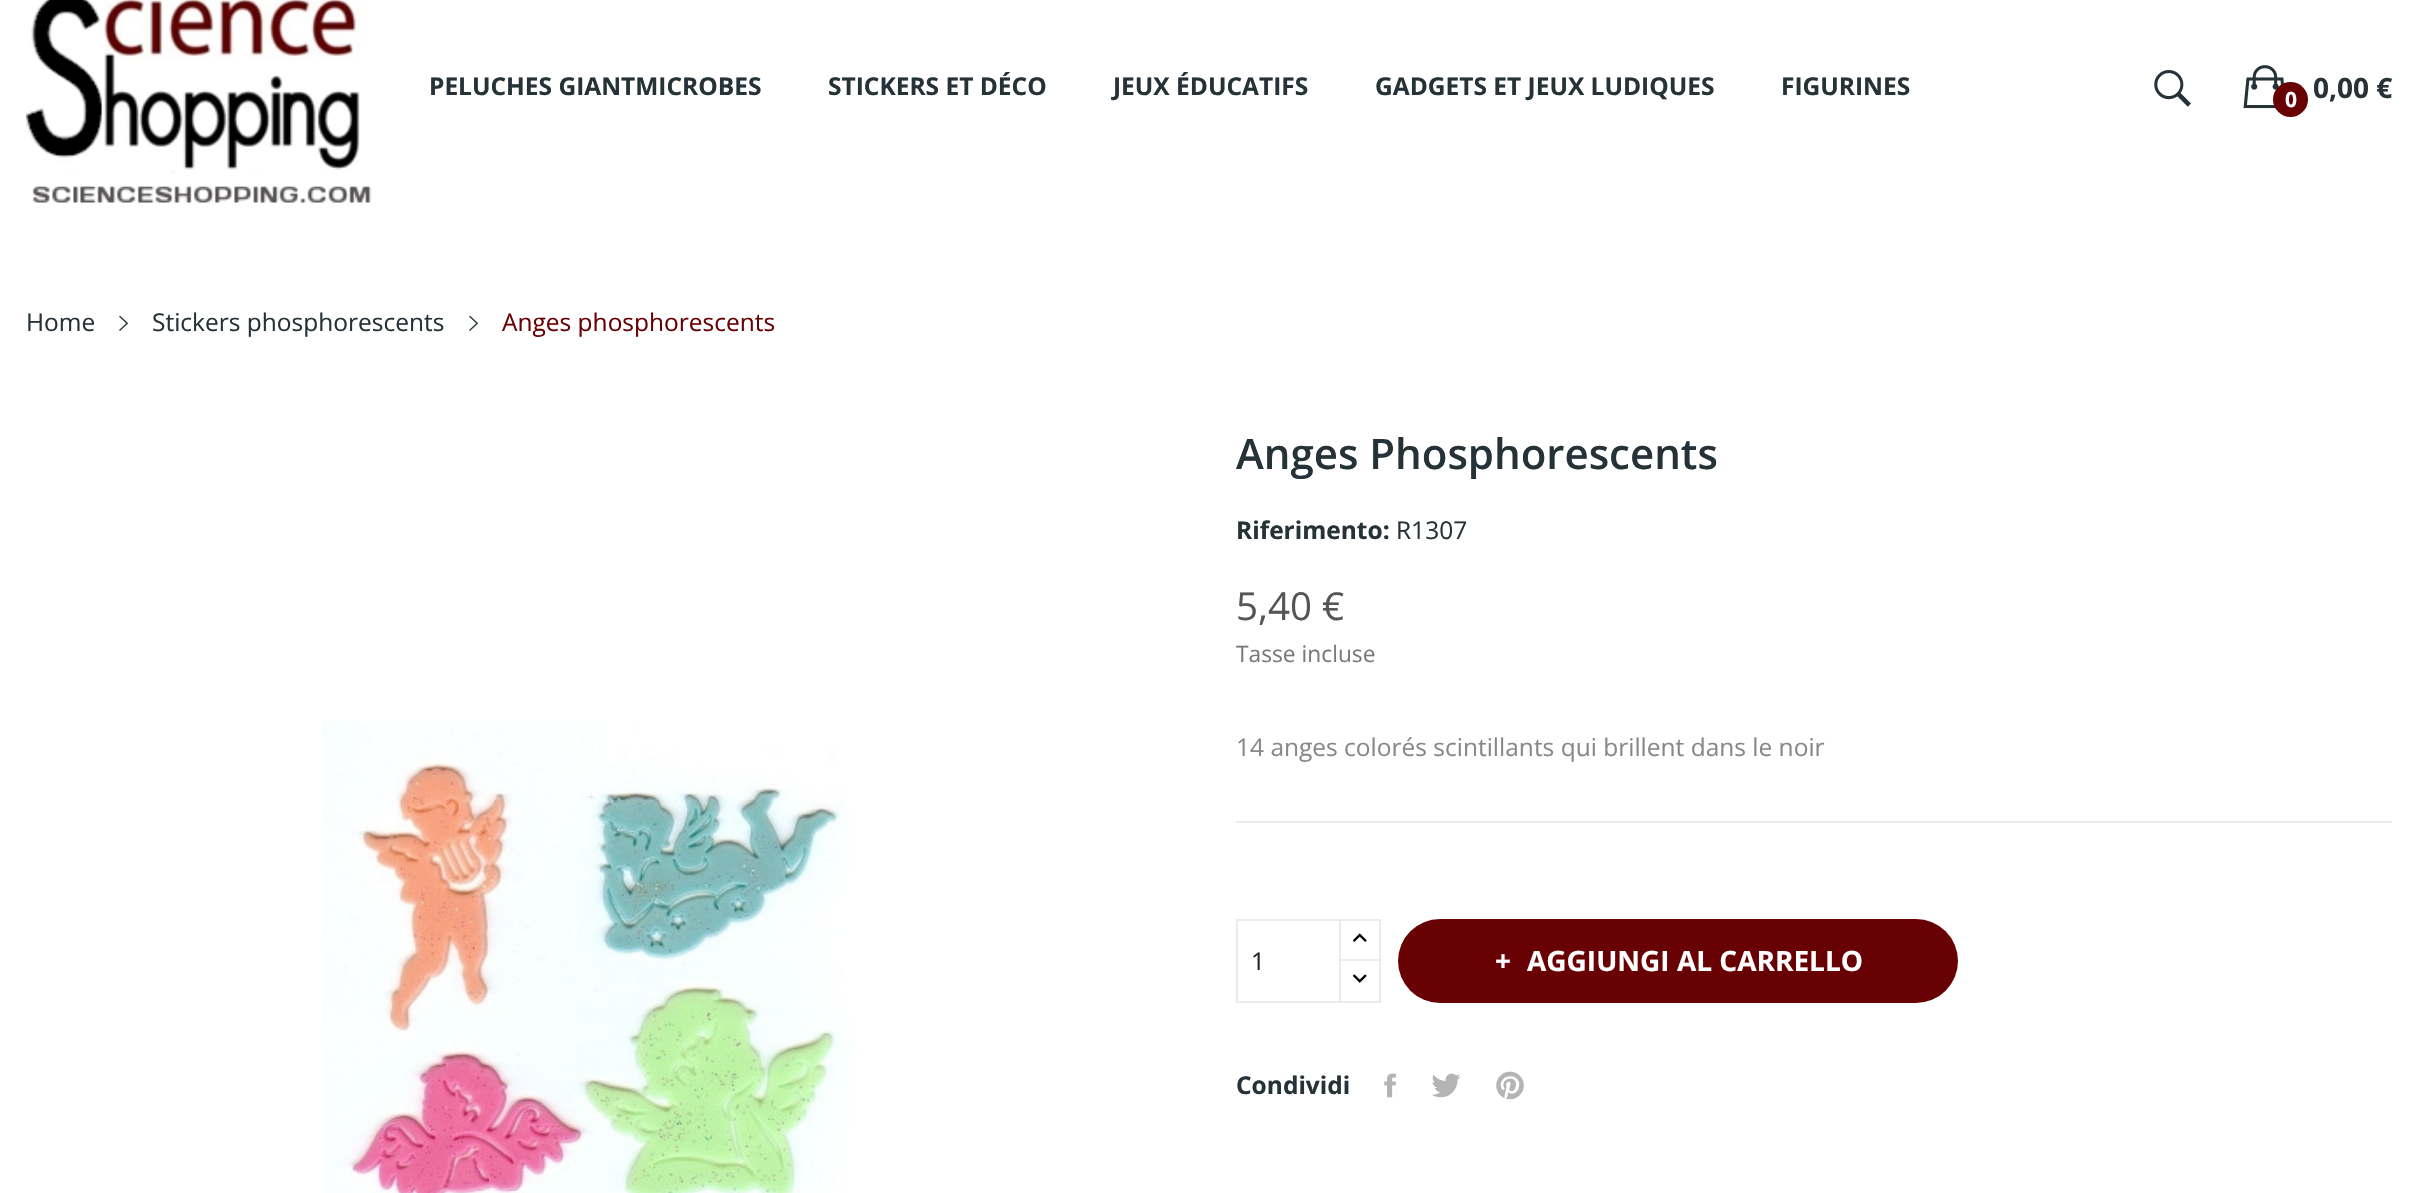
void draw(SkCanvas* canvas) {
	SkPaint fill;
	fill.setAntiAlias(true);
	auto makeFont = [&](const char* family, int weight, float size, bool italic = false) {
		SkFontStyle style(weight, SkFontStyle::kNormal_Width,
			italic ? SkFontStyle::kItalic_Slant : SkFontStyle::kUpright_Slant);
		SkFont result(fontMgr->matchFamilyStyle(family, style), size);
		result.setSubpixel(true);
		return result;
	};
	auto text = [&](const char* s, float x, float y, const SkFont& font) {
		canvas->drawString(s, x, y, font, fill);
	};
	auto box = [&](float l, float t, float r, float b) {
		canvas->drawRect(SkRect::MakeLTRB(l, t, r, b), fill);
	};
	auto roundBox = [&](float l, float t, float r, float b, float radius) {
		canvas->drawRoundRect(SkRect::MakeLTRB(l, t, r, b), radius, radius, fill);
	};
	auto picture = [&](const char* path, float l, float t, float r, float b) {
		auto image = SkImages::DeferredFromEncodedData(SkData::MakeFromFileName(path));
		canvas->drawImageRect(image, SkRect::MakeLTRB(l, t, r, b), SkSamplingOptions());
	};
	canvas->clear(0xFFFFFFFF);
	picture("image0.png", 26, 0, 372, 203);
	picture("image1.png", 2154, 70, 2191, 107);
	picture("image2.png", 2243, 65, 2284, 109);
	fill.setColor(0xFF680104);
	canvas->drawCircle(2290.5f, 99.5f, 17.5f, fill);
	picture("image3.png", 119, 315, 129, 331);
	picture("image3.png", 469, 315, 479, 331);
	picture("image4.png", 322, 721, 853, 1193);
	fill.setColor(0xFFEBEBEB);
	box(1236, 821, 2392, 823);
	fill.setStyle(SkPaint::kStroke_Style);
	fill.setStrokeWidth(2);
	canvas->drawRect(SkRect::MakeLTRB(1340, 920, 1380, 962), fill);
	fill.setStyle(SkPaint::kFill_Style);
	fill.setColor(0xFFFFFFFF);
	box(1341, 961, 1379, 963);
	fill.setStyle(SkPaint::kStroke_Style);
	fill.setColor(0xFFEBEBEB);
	canvas->drawRect(SkRect::MakeLTRB(1340, 960, 1380, 1002), fill);
	canvas->drawRect(SkRect::MakeLTRB(1237, 920, 1340, 1002), fill);
	picture("image5.png", 1352, 933, 1367, 942);
	picture("image6.png", 1352, 974, 1367, 983);
	fill.setStyle(SkPaint::kFill_Style);
	fill.setColor(0xFF680104);
	roundBox(1398, 919, 1958, 1003, 42);
	picture("image7.png", 1384, 1073, 1397, 1098);
	picture("image8.png", 1431, 1073, 1461, 1098);
	picture("image9.png", 1496, 1071, 1524, 1100);
	auto font1 = makeFont("Open Sans", 700, 24.5f);
	fill.setColor(0xFF253237);
	text("PELUCHES GIANTMICROBES", 429, 95, font1);
	text("STICKERS ET DÉCO", 828, 95, font1);
	text("JEUX ÉDUCATIFS", 1113, 95, font1);
	text("GADGETS ET JEUX LUDIQUES", 1375, 95, font1);
	text("FIGURINES", 1781, 95, font1);
	auto font2 = makeFont("Open Sans", 700, 21);
	fill.setColor(0xFFFFFFFF);
	text("0", 2285, 107, font2);
	auto font3 = makeFont("Open Sans", 700, 28);
	fill.setColor(0xFF253237);
	text("0,00 €", 2313, 98, font3);
	auto font4 = makeFont("Open Sans", 400, 24.5f);
	text("Home", 26, 331, font4);
	text("Stickers phosphorescents", 152, 331, font4);
	fill.setColor(0xFF680104);
	text("Anges phosphorescents", 502, 331, font4);
	auto font5 = makeFont("Open Sans", 600, 42);
	fill.setColor(0xFF253237);
	text("Anges Phosphorescents", 1236, 469, font5);
	text("Riferimento:", 1236, 539, font1);
	text("R1307", 1396, 539, font4);
	auto font6 = makeFont("Open Sans", 400, 38.5f);
	fill.setColor(0xFF555555);
	text("5,40 €", 1236, 620, font6);
	auto font7 = makeFont("Open Sans", 400, 22.75f);
	fill.setColor(0xFF7A7A7A);
	text("Tasse incluse", 1236, 662, font7);
	fill.setColor(0xFF888888);
	text("14 anges colorés scintillants qui brillent dans le noir", 1236, 756, font4);
	fill.setColor(0xFF232323);
	text("1", 1251, 970, font4);
	fill.setColor(0xFFFFFFFF);
	text("+", 1495, 971, font3);
	text("AGGIUNGI AL CARRELLO", 1527, 971, font3);
	fill.setColor(0xFF253237);
	text("Condividi", 1236, 1094, font1);
}
